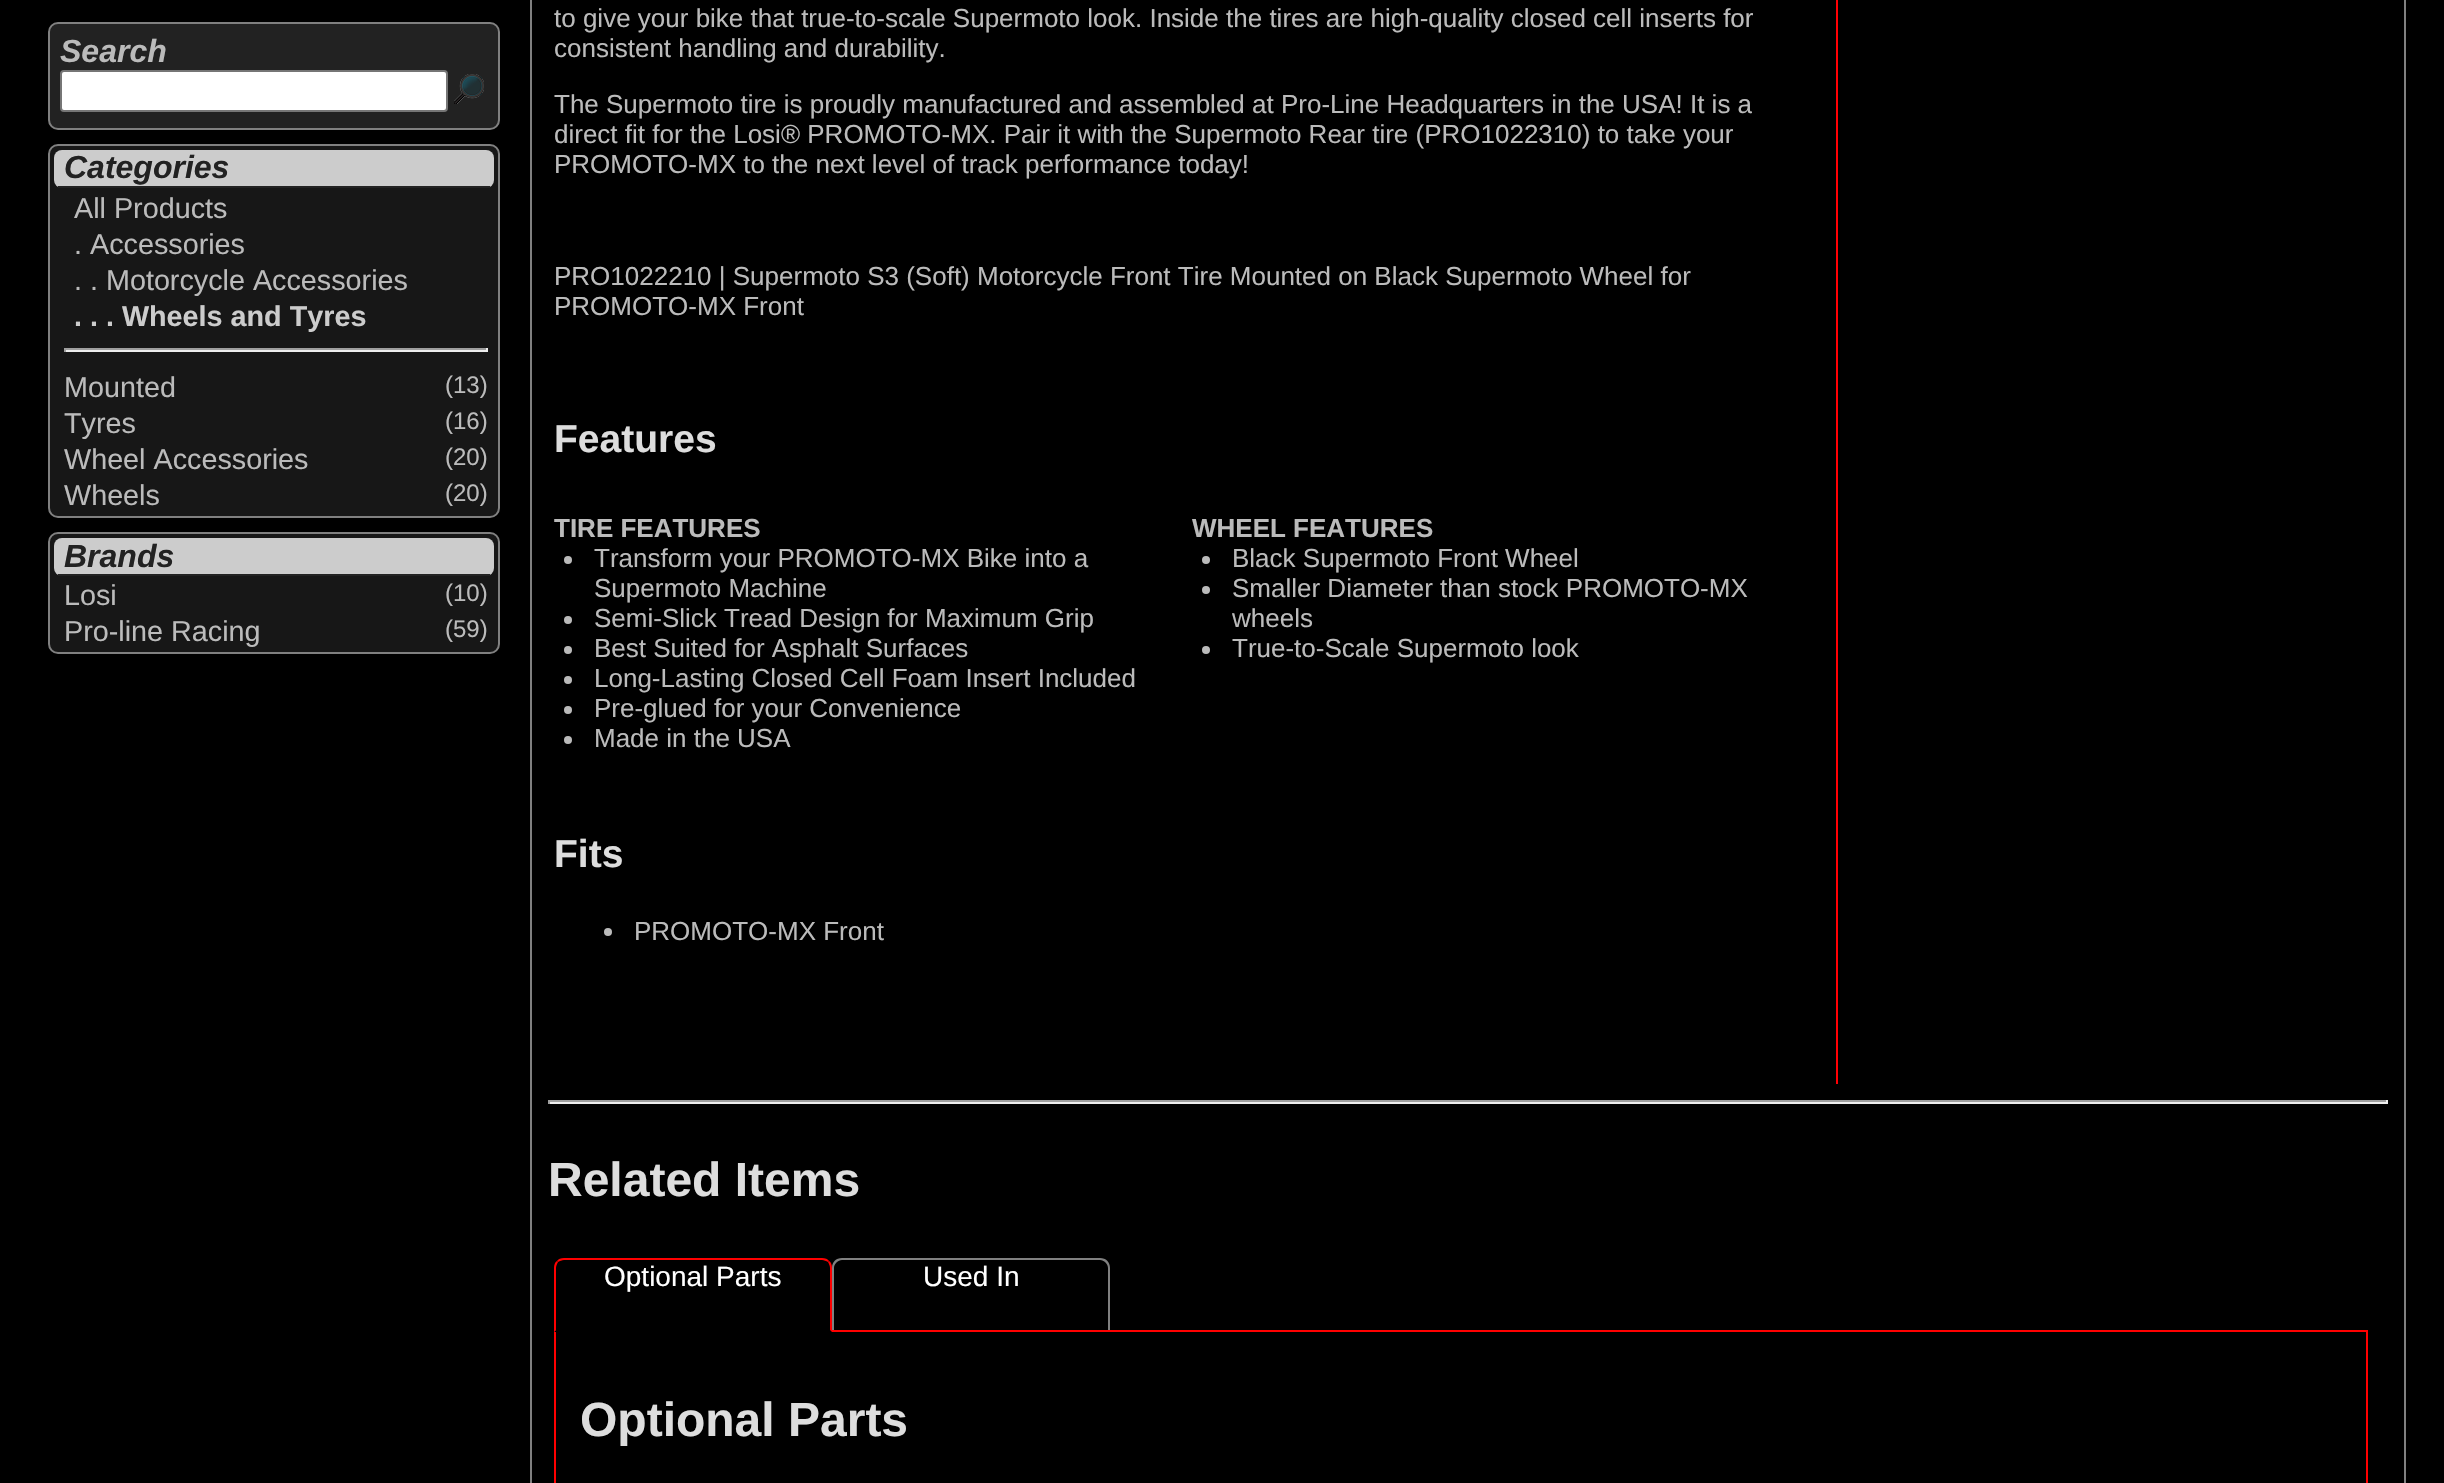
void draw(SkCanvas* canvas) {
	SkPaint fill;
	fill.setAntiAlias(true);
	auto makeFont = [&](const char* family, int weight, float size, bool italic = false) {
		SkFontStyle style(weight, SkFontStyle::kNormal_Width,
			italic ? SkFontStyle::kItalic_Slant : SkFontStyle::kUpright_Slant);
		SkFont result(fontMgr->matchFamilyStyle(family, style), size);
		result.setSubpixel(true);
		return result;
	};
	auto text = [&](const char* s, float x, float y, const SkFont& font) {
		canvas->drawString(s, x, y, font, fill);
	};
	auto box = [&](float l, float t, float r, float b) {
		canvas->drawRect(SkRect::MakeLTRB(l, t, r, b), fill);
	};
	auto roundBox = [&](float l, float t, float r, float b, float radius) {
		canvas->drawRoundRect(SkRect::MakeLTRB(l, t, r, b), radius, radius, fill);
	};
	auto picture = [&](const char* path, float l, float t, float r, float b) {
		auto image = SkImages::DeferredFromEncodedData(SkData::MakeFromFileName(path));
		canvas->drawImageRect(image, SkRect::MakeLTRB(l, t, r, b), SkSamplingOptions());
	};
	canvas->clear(0xFF000000);
	fill.setColor(0xFF222222);
	canvas->drawRoundRect(SkRect::MakeLTRB(49, 23, 499, 129), 9, 9, fill);
	fill.setStyle(SkPaint::kStroke_Style);
	fill.setStrokeWidth(2);
	fill.setColor(0xFF808080);
	canvas->drawRoundRect(SkRect::MakeLTRB(49, 23, 499, 129), 9, 9, fill);
	fill.setStyle(SkPaint::kFill_Style);
	fill.setColor(0xFFFFFFFF);
	canvas->drawRoundRect(SkRect::MakeLTRB(61, 71, 447, 111), 3, 3, fill);
	fill.setStyle(SkPaint::kStroke_Style);
	fill.setColor(0xFF767676);
	canvas->drawRoundRect(SkRect::MakeLTRB(61, 71, 447, 111), 3, 3, fill);
	picture("image0.png", 454, 74, 484, 104);
	fill.setStyle(SkPaint::kFill_Style);
	fill.setColor(0xFF171717);
	canvas->drawRoundRect(SkRect::MakeLTRB(49, 145, 499, 517), 9, 9, fill);
	fill.setStyle(SkPaint::kStroke_Style);
	fill.setColor(0xFF808080);
	canvas->drawRoundRect(SkRect::MakeLTRB(49, 145, 499, 517), 9, 9, fill);
	fill.setStyle(SkPaint::kFill_Style);
	fill.setColor(0xFFCCCCCC);
	roundBox(54, 150, 494, 188, 8);
	fill.setColor(0xFF222222);
	box(58, 186, 490, 188);
	fill.setColor(0xFF9F9F9F);
	box(64, 348, 488, 350);
	fill.setColor(0xFFEEEEEE);
	box(486, 348, 488, 352);
	box(64, 350, 488, 352);
	fill.setColor(0xFF9F9F9F);
	box(64, 348, 66, 352);
	fill.setColor(0xFF171717);
	canvas->drawRoundRect(SkRect::MakeLTRB(49, 533, 499, 653), 9, 9, fill);
	fill.setStyle(SkPaint::kStroke_Style);
	fill.setColor(0xFF808080);
	canvas->drawRoundRect(SkRect::MakeLTRB(49, 533, 499, 653), 9, 9, fill);
	fill.setStyle(SkPaint::kFill_Style);
	fill.setColor(0xFFCCCCCC);
	roundBox(54, 538, 494, 576, 8);
	fill.setColor(0xFF222222);
	box(58, 574, 490, 576);
	fill.setStyle(SkPaint::kStroke_Style);
	fill.setColor(0xFF808080);
	canvas->drawRect(SkRect::MakeLTRB(531, -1, 2405, 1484), fill);
	fill.setStyle(SkPaint::kFill_Style);
	fill.setColor(0xFFFF0004);
	box(1836, 0, 1838, 1084);
	fill.setColor(0xFFBBBBBB);
	canvas->drawCircle(568, 560, 4, fill);
	canvas->drawCircle(568, 620, 4, fill);
	canvas->drawCircle(568, 650, 4, fill);
	canvas->drawCircle(568, 680, 4, fill);
	canvas->drawCircle(568, 710, 4, fill);
	canvas->drawCircle(568, 740, 4, fill);
	canvas->drawCircle(1206, 560, 4, fill);
	canvas->drawCircle(1206, 590, 4, fill);
	canvas->drawCircle(1206, 650, 4, fill);
	canvas->drawCircle(608, 932, 4, fill);
	fill.setColor(0xFF9F9F9F);
	box(548, 1100, 2388, 1102);
	fill.setColor(0xFFEEEEEE);
	box(2386, 1100, 2388, 1104);
	box(548, 1102, 2388, 1104);
	fill.setColor(0xFF9F9F9F);
	box(548, 1100, 550, 1104);
	fill.setColor(0xFFFF0000);
	canvas->drawPath(SkPathBuilder().moveTo(564, 1258).cubicTo(561, 1258, 558, 1259, 557, 1261).lineTo(558, 1262).cubicTo(560, 1261, 562, 1260, 564, 1260).lineTo(822, 1260).cubicTo(824, 1260, 826, 1261, 828, 1262).lineTo(829, 1261).cubicTo(828, 1259, 825, 1258, 822, 1258).close().detach(), fill);
	fill.setStyle(SkPaint::kStroke_Style);
	canvas->drawRect(SkRect::MakeLTRB(555, 1331, 2367, 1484), fill);
	fill.setStyle(SkPaint::kFill_Style);
	canvas->drawPath(SkPathBuilder().moveTo(832, 1332).lineTo(832, 1268).cubicTo(832, 1265, 831, 1262, 829, 1261).lineTo(828, 1262).cubicTo(829, 1264, 830, 1266, 830, 1268).lineTo(830, 1330).close().detach(), fill);
	fill.setColor(0xFF000000);
	canvas->drawPath(SkPathBuilder().moveTo(832, 1332).lineTo(830, 1330).lineTo(556, 1330).lineTo(554, 1332).close().detach(), fill);
	fill.setColor(0xFFFF0000);
	canvas->drawPath(SkPathBuilder().moveTo(554, 1332).lineTo(556, 1330).lineTo(556, 1268).cubicTo(556, 1266, 557, 1264, 558, 1262).lineTo(557, 1261).cubicTo(555, 1262, 554, 1265, 554, 1268).close().detach(), fill);
	fill.setColor(0xFF808080);
	canvas->drawPath(SkPathBuilder(SkPathFillType::kEvenOdd).moveTo(842, 1258).lineTo(1100, 1258).cubicTo(1106, 1258, 1110, 1262, 1110, 1268).lineTo(1110, 1330).lineTo(832, 1330).lineTo(832, 1268).cubicTo(832, 1262, 836, 1258, 842, 1258).close().moveTo(842, 1260).lineTo(1100, 1260).cubicTo(1104, 1260, 1108, 1264, 1108, 1268).lineTo(1108, 1330).lineTo(834, 1330).lineTo(834, 1268).cubicTo(834, 1264, 838, 1260, 842, 1260).close().detach(), fill);
	auto font1 = makeFont("Liberation Sans", 700, 32, true);
	fill.setColor(0xFFBBBBBB);
	text("Search", 60, 62, font1);
	fill.setColor(0xFF222222);
	text("Categories", 64, 178, font1);
	auto font2 = makeFont("Liberation Sans", 400, 28.75f);
	fill.setColor(0xFFBBBBBB);
	text("All Products", 74, 218, font2);
	text(". Accessories", 74, 254, font2);
	text(". . Motorcycle Accessories", 74, 290, font2);
	auto font3 = makeFont("Liberation Sans", 700, 28.75f);
	fill.setColor(0xFFCCCCCC);
	text(". . . Wheels and Tyres", 74, 326, font3);
	fill.setColor(0xFFBBBBBB);
	text("Mounted", 64, 397, font2);
	auto font4 = makeFont("Liberation Sans", 400, 24);
	text("(13)", 445, 393, font4);
	text("Tyres", 64, 433, font2);
	text("(16)", 445, 429, font4);
	text("Wheel Accessories", 64, 469, font2);
	text("(20)", 445, 465, font4);
	text("Wheels", 64, 505, font2);
	text("(20)", 445, 501, font4);
	fill.setColor(0xFF222222);
	text("Brands", 64, 567, font1);
	fill.setColor(0xFFBBBBBB);
	text("Losi", 64, 605, font2);
	text("(10)", 445, 601, font4);
	text("Pro-line Racing", 64, 641, font2);
	text("(59)", 445, 637, font4);
	auto font5 = makeFont("Liberation Sans", 400, 26);
	text("to give your bike that true-to-scale Supermoto look. Inside the tires are high-quality closed cell inserts for", 554, 27, font5);
	text("consistent handling and durability.", 554, 57, font5);
	text("The Supermoto tire is proudly manufactured and assembled at Pro-Line Headquarters in the USA! It is a", 554, 113, font5);
	text("direct fit for the Losi® PROMOTO-MX. Pair it with the Supermoto Rear tire (PRO1022310) to take your", 554, 143, font5);
	text("PROMOTO-MX to the next level of track performance today!", 554, 173, font5);
	text("PRO1022210 | Supermoto S3 (Soft) Motorcycle Front Tire Mounted on Black Supermoto Wheel for", 554, 285, font5);
	text("PROMOTO-MX Front", 554, 315, font5);
	auto font6 = makeFont("Liberation Sans", 700, 39);
	fill.setColor(0xFFDDDDDD);
	text("Features", 554, 452, font6);
	auto font7 = makeFont("Liberation Sans", 700, 26);
	fill.setColor(0xFFBBBBBB);
	text("TIRE FEATURES", 554, 537, font7);
	text("Transform your PROMOTO-MX Bike into a", 594, 567, font5);
	text("Supermoto Machine", 594, 597, font5);
	text("Semi-Slick Tread Design for Maximum Grip", 594, 627, font5);
	text("Best Suited for Asphalt Surfaces", 594, 657, font5);
	text("Long-Lasting Closed Cell Foam Insert Included", 594, 687, font5);
	text("Pre-glued for your Convenience", 594, 717, font5);
	text("Made in the USA", 594, 747, font5);
	text("WHEEL FEATURES", 1192, 537, font7);
	text("Black Supermoto Front Wheel", 1232, 567, font5);
	text("Smaller Diameter than stock PROMOTO-MX", 1232, 597, font5);
	text("wheels", 1232, 627, font5);
	text("True-to-Scale Supermoto look", 1232, 657, font5);
	fill.setColor(0xFFDDDDDD);
	text("Fits", 554, 867, font6);
	fill.setColor(0xFFBBBBBB);
	text("PROMOTO-MX Front", 634, 940, font5);
	auto font8 = makeFont("Liberation Sans", 700, 48);
	fill.setColor(0xFFDDDDDD);
	text("Related Items", 548, 1196, font8);
	auto font9 = makeFont("Liberation Sans", 400, 28);
	fill.setColor(0xFFFFFFFF);
	text("Optional Parts", 604, 1286, font9);
	text("Used In", 923, 1286, font9);
	fill.setColor(0xFFDDDDDD);
	text("Optional Parts", 580, 1436, font8);
}
